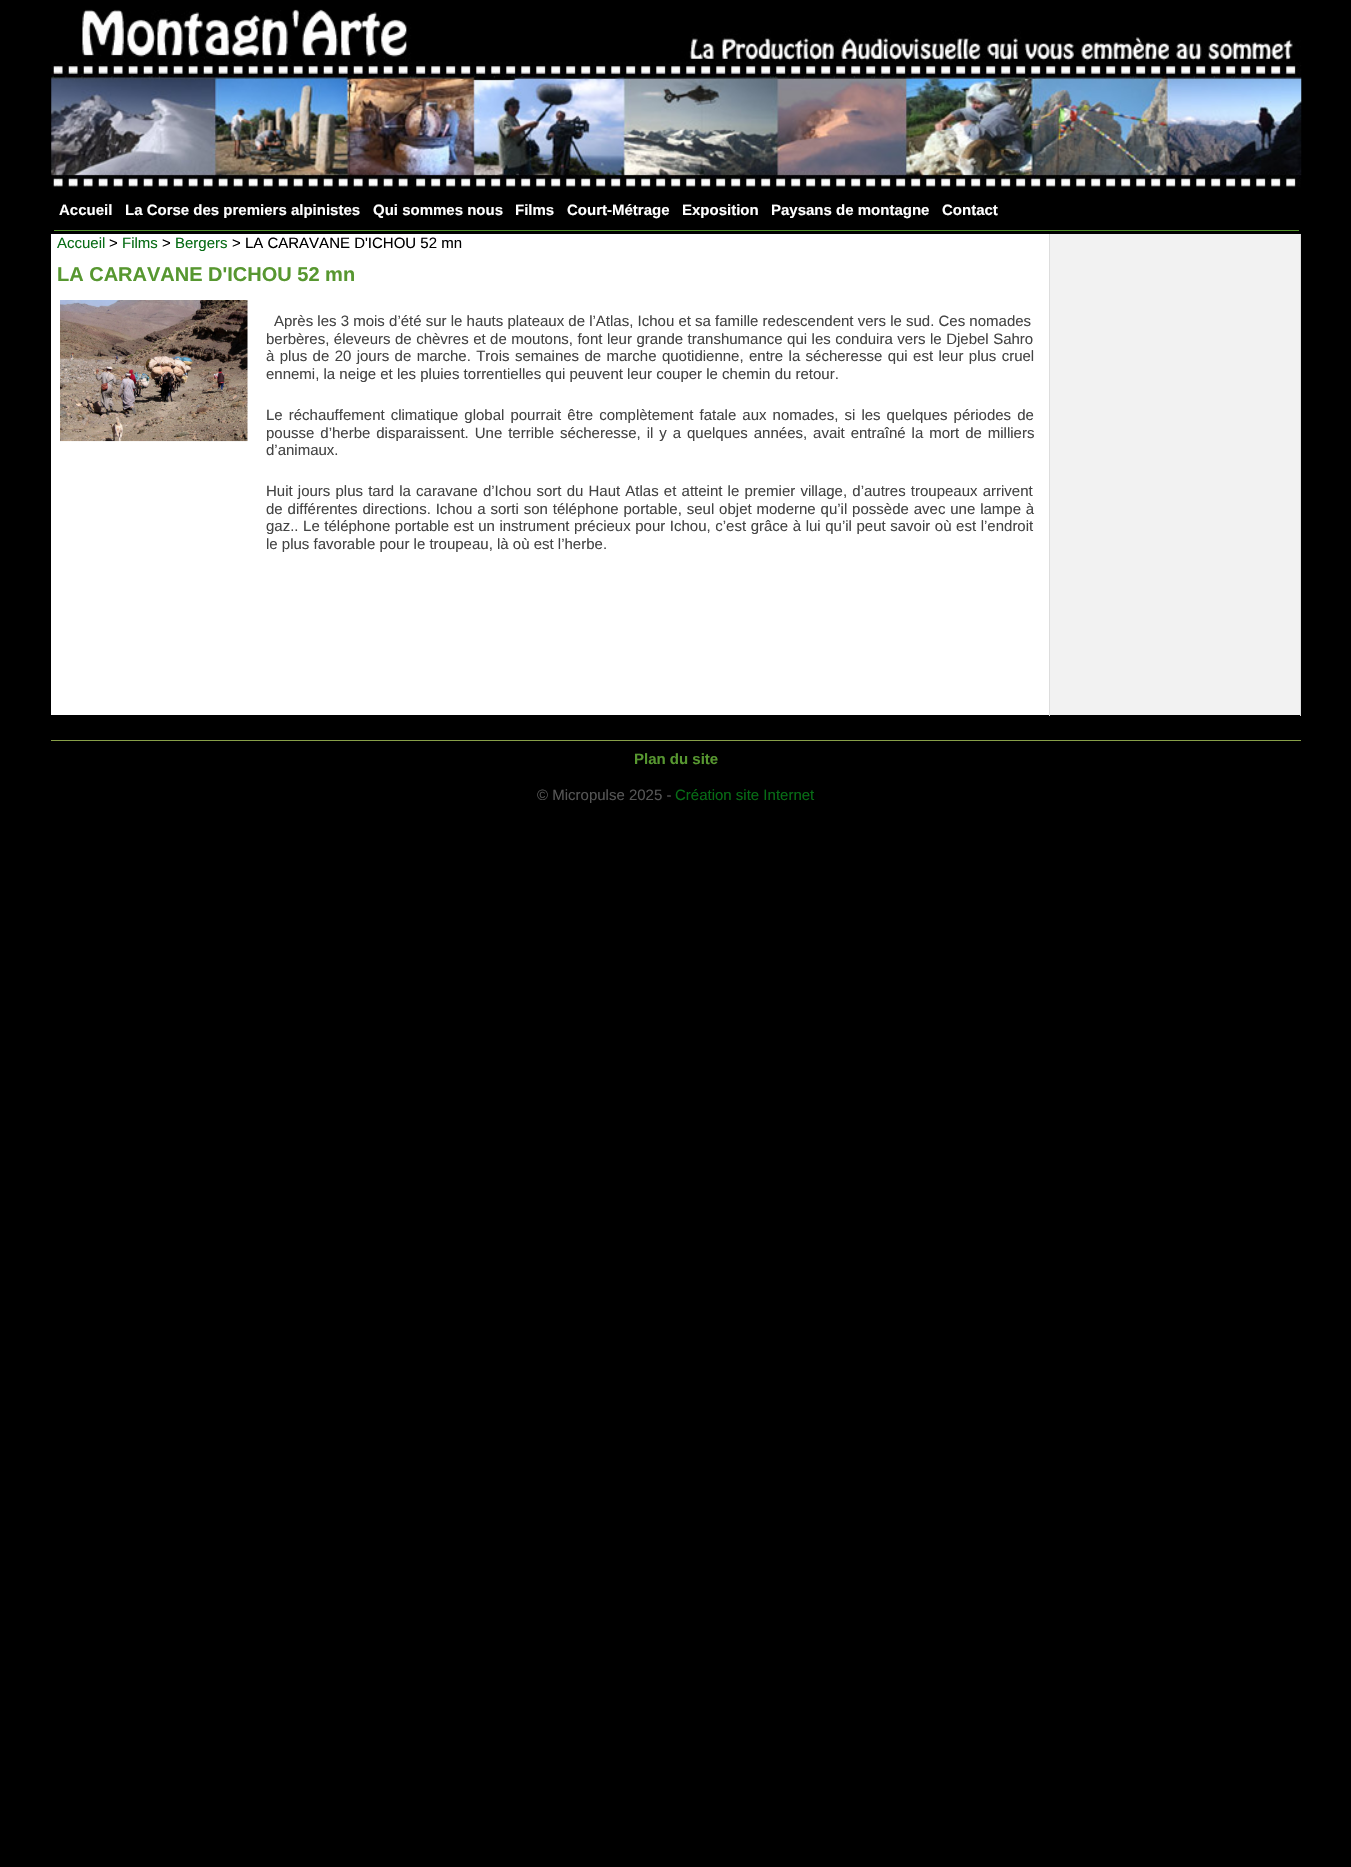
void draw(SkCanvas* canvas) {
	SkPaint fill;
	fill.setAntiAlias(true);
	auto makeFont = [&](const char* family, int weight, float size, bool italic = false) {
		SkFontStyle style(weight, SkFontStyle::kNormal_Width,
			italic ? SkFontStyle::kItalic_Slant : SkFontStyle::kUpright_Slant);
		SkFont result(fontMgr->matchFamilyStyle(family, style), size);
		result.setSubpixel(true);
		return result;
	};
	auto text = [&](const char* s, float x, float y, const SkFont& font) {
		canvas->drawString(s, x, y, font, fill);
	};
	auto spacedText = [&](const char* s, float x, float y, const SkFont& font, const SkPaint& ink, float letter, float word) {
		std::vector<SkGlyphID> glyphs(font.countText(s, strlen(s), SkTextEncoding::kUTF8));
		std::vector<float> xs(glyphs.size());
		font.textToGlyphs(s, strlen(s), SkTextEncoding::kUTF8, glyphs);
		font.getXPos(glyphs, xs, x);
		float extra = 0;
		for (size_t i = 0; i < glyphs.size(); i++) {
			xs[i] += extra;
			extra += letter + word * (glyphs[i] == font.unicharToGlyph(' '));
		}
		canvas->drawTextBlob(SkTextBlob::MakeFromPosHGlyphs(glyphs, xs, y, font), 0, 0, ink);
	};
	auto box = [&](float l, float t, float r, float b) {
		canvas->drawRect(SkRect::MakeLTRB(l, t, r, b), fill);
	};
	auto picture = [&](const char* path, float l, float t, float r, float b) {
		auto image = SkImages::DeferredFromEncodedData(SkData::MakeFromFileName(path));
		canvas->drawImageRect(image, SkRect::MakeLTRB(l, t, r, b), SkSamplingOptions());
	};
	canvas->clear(0xFF000000);
	picture("image0.png", 51, 9, 1302, 188);
	fill.setColor(0xFF579730);
	box(54, 230, 1299, 231);
	fill.setColor(0xFFFFFFFF);
	box(51, 234, 1049, 715);
	picture("image1.png", 60, 300, 248, 442);
	fill.setColor(0xFFF2F2F2);
	box(1050, 234, 1300, 715);
	fill.setColor(0xFFDDDDDD);
	box(1300, 234, 1301, 716);
	box(1049, 234, 1050, 716);
	fill.setColor(0xFF889F49);
	box(51, 740, 1301, 741);
	auto font1 = makeFont("Liberation Sans", 700, 15);
	fill.setColor(0xFFFFFFFF);
	text("Accueil", 59, 215, font1);
	text("La Corse des premiers alpinistes", 125, 215, font1);
	text("Qui sommes nous", 373, 215, font1);
	text("Films", 515, 215, font1);
	text("Court-Métrage", 567, 215, font1);
	text("Exposition", 682, 215, font1);
	text("Paysans de montagne", 771, 215, font1);
	text("Contact", 942, 215, font1);
	auto font2 = makeFont("Liberation Sans", 400, 15);
	fill.setColor(0xFF076C15);
	text("Accueil", 57, 248, font2);
	fill.setColor(0xFF000000);
	text(">", 109, 248, font2);
	fill.setColor(0xFF076C15);
	text("Films", 122, 248, font2);
	fill.setColor(0xFF000000);
	text(">", 162, 248, font2);
	fill.setColor(0xFF076C15);
	text("Bergers", 175, 248, font2);
	fill.setColor(0xFF000000);
	text("> LA CARAVANE D'ICHOU 52 mn", 232, 248, font2);
	auto font3 = makeFont("Liberation Sans", 700, 20);
	fill.setColor(0xFF579730);
	text("LA CARAVANE D'ICHOU 52 mn", 57, 281, font3);
	fill.setColor(0xFF444444);
	text("Après les 3 mois d’été sur le hauts plateaux de l’Atlas, Ichou et sa famille redescendent vers le sud. Ces nomades", 274, 326, font2);
	spacedText("berbères, éleveurs de chèvres et de moutons, font leur grande transhumance qui les conduira vers le Djebel Sahro", 266, 344, font2, fill, 0, 0.3f);
	spacedText("à plus de 20 jours de marche. Trois semaines de marche quotidienne, entre la sécheresse qui est leur plus cruel", 266, 361, font2, fill, 0, 1.2f);
	text("ennemi, la neige et les pluies torrentielles qui peuvent leur couper le chemin du retour.", 266, 379, font2);
	spacedText("Le réchauffement climatique global pourrait être complètement fatale aux nomades, si les quelques périodes de", 266, 420, font2, fill, 0, 1.9f);
	spacedText("pousse d’herbe disparaissent. Une terrible sécheresse, il y a quelques années, avait entraîné la mort de milliers", 266, 438, font2, fill, 0, 1.75f);
	text("d’animaux.", 266, 455, font2);
	spacedText("Huit jours plus tard la caravane d’Ichou sort du Haut Atlas et atteint le premier village, d’autres troupeaux arrivent", 266, 496, font2, fill, 0, 1);
	spacedText("de différentes directions. Ichou a sorti son téléphone portable, seul objet moderne qu’il possède avec une lampe à", 266, 514, font2, fill, 0, 0.7f);
	spacedText("gaz.. Le téléphone portable est un instrument précieux pour Ichou, c’est grâce à lui qu’il peut savoir où est l’endroit", 266, 531, font2, fill, 0, 0.4f);
	text("le plus favorable pour le troupeau, là où est l’herbe.", 266, 549, font2);
	fill.setColor(0xFF579730);
	text("Plan du site", 634, 764, font1);
	fill.setColor(0xFF555555);
	text("© Micropulse 2025 -", 537, 800, font2);
	fill.setColor(0xFF076C15);
	text("Création site Internet", 675, 800, font2);
}
